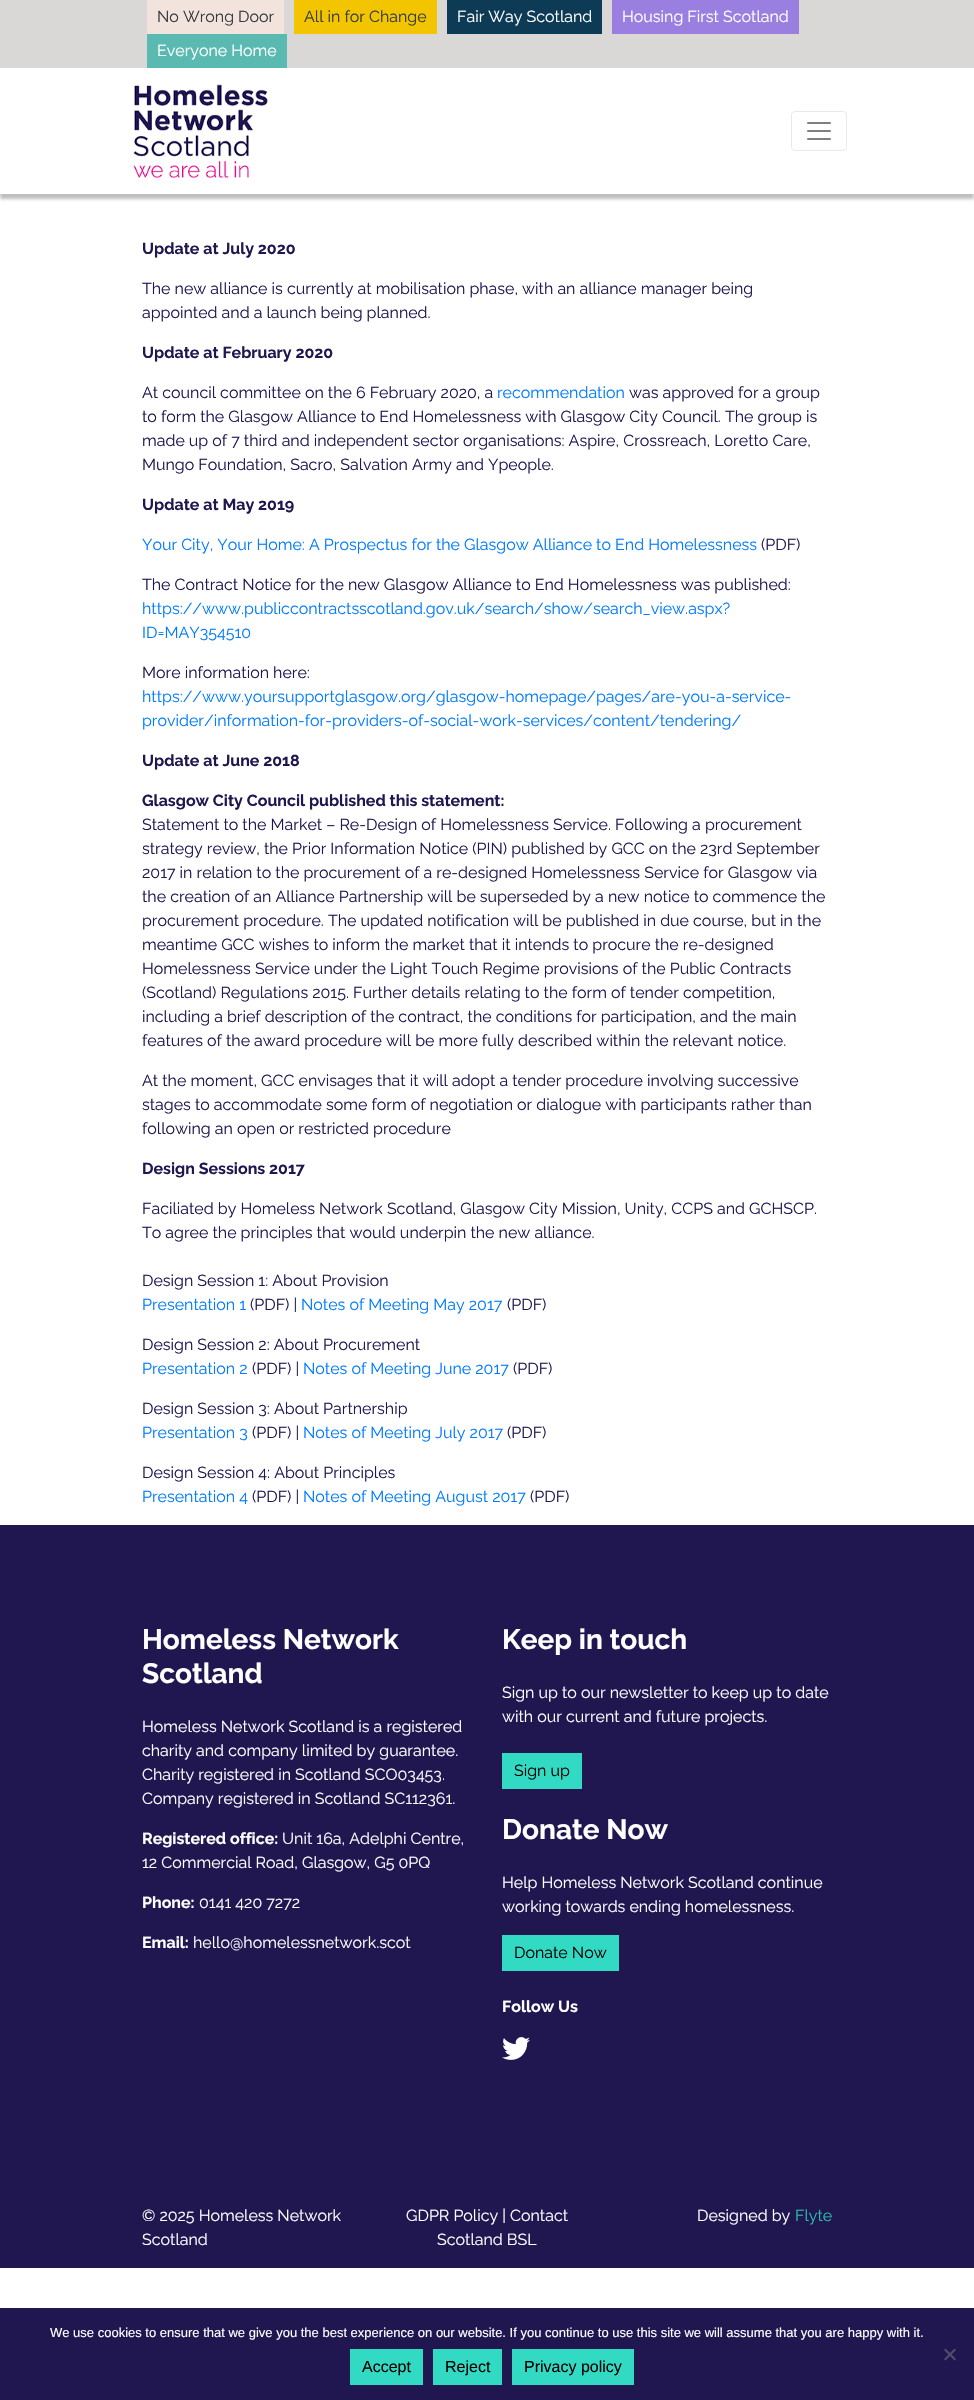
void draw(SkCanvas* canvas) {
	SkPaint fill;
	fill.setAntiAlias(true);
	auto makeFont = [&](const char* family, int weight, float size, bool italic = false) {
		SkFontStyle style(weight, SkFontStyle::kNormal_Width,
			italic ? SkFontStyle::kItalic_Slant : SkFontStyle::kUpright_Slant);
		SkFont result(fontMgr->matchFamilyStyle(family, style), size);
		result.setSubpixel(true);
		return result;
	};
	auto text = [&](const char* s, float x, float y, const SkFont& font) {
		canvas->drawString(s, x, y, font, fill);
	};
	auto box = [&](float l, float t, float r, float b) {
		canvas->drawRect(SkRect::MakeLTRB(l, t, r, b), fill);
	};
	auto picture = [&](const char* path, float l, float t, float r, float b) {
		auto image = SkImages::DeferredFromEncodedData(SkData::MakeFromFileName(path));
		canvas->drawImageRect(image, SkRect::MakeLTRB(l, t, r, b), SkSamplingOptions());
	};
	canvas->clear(0xFFFFFFFF);
	fill.setColor(0x40000000);
	fill.setMaskFilter(SkMaskFilter::MakeBlur(kNormal_SkBlurStyle, 1.5f));
	canvas->drawRect(SkRect::MakeLTRB(0, 5, 974, 199), fill);
	fill.setMaskFilter(nullptr);
	fill.setColor(0xFFFFFFFF);
	box(0, 68, 974, 194);
	fill.setColor(0xFFD9D8D6);
	box(0, 0, 974, 68);
	fill.setColor(0xFFF2E3DC);
	box(147, 0, 284, 34);
	fill.setColor(0xFFF2C500);
	box(294, 0, 437, 34);
	fill.setColor(0xFF0D3A54);
	box(447, 0, 602, 34);
	fill.setColor(0xFF9A7FE1);
	box(612, 0, 799, 34);
	fill.setColor(0xFF5ABAB2);
	box(147, 34, 287, 68);
	picture("image0.png", 133, 84, 268, 179);
	fill.setStyle(SkPaint::kStroke_Style);
	fill.setStrokeWidth(1);
	fill.setColor(0xFFE9E8EE);
	canvas->drawRoundRect(SkRect::MakeLTRB(791.5f, 111.5f, 846.5f, 150.5f), 3.5f, 3.5f, fill);
	picture("image1.png", 807, 122, 831, 140);
	fill.setStyle(SkPaint::kFill_Style);
	fill.setColor(0xFF201751);
	box(0, 1525, 974, 2268);
	fill.setColor(0xFF32D9C3);
	box(502, 1753, 582, 1789);
	box(502, 1935, 619, 1971);
	picture("image2.png", 502, 2037, 530, 2060);
	fill.setColor(0xFF201751);
	box(0, 2308, 974, 2400);
	fill.setColor(0xFF504C69);
	canvas->drawPath(SkPathBuilder().moveTo(954.5f, 2348.5f).lineTo(956, 2350).lineTo(945.5f, 2360.5f).lineTo(944, 2359).close().detach(), fill);
	canvas->drawPath(SkPathBuilder().moveTo(944, 2350).lineTo(945.5f, 2348.5f).lineTo(956, 2359).lineTo(954.5f, 2360.5f).close().detach(), fill);
	fill.setColor(0xFF32D9C3);
	box(350, 2349, 423, 2385);
	box(433, 2349, 502, 2385);
	box(512, 2349, 634, 2385);
	auto font1 = makeFont("Raleway", 400, 16);
	fill.setColor(0xFF343A40);
	text("No Wrong Door", 157, 22, font1);
	text("All in for Change", 304, 22, font1);
	fill.setColor(0xFFFFFFFF);
	text("Fair Way Scotland", 457, 22, font1);
	text("Housing First Scotland", 622, 22, font1);
	text("Everyone Home", 157, 56, font1);
	auto font2 = makeFont("Raleway", 700, 16);
	fill.setColor(0xFF201751);
	text("Update at July 2020", 142, 254, font2);
	text("The new alliance is currently at mobilisation phase, with an alliance manager being", 142, 294, font1);
	text("appointed and a launch being planned.", 142, 318, font1);
	text("Update at February 2020", 142, 358, font2);
	text("At council committee on the 6 February 2020, a", 142, 398, font1);
	fill.setColor(0xFF007BFF);
	text("recommendation", 497, 398, font1);
	fill.setColor(0xFF201751);
	text("was approved for a group", 629, 398, font1);
	text("to form the Glasgow Alliance to End Homelessness with Glasgow City Council. The group is", 142, 422, font1);
	text("made up of 7 third and independent sector organisations: Aspire, Crossreach, Loretto Care,", 142, 446, font1);
	text("Mungo Foundation, Sacro, Salvation Army and Ypeople.", 142, 470, font1);
	text("Update at May 2019", 142, 510, font2);
	fill.setColor(0xFF007BFF);
	text("Your City, Your Home: A Prospectus for the Glasgow Alliance to End Homelessness", 142, 550, font1);
	fill.setColor(0xFF201751);
	text("(PDF)", 761, 550, font1);
	text("The Contract Notice for the new Glasgow Alliance to End Homelessness was published:", 142, 590, font1);
	fill.setColor(0xFF007BFF);
	text("https://www.publiccontractsscotland.gov.uk/search/show/search_view.aspx?", 142, 614, font1);
	text("ID=MAY354510", 142, 638, font1);
	fill.setColor(0xFF201751);
	text("More information here:", 142, 678, font1);
	fill.setColor(0xFF007BFF);
	text("https://www.yoursupportglasgow.org/glasgow-homepage/pages/are-you-a-service-", 142, 702, font1);
	text("provider/information-for-providers-of-social-work-services/content/tendering/", 142, 726, font1);
	fill.setColor(0xFF201751);
	text("Update at June 2018", 142, 766, font2);
	text("Glasgow City Council published this statement:", 142, 806, font2);
	text("Statement to the Market – Re-Design of Homelessness Service. Following a procurement", 142, 830, font1);
	text("strategy review, the Prior Information Notice (PIN) published by GCC on the 23rd September", 142, 854, font1);
	text("2017 in relation to the procurement of a re-designed Homelessness Service for Glasgow via", 142, 878, font1);
	text("the creation of an Alliance Partnership will be superseded by a new notice to commence the", 142, 902, font1);
	text("procurement procedure. The updated notification will be published in due course, but in the", 142, 926, font1);
	text("meantime GCC wishes to inform the market that it intends to procure the re-designed", 142, 950, font1);
	text("Homelessness Service under the Light Touch Regime provisions of the Public Contracts", 142, 974, font1);
	text("(Scotland) Regulations 2015. Further details relating to the form of tender competition,", 142, 998, font1);
	text("including a brief description of the contract, the conditions for participation, and the main", 142, 1022, font1);
	text("features of the award procedure will be more fully described within the relevant notice.", 142, 1046, font1);
	text("At the moment, GCC envisages that it will adopt a tender procedure involving successive", 142, 1086, font1);
	text("stages to accommodate some form of negotiation or dialogue with participants rather than", 142, 1110, font1);
	text("following an open or restricted procedure", 142, 1134, font1);
	text("Design Sessions 2017", 142, 1174, font2);
	text("Faciliated by Homeless Network Scotland, Glasgow City Mission, Unity, CCPS and GCHSCP.", 142, 1214, font1);
	text("To agree the principles that would underpin the new alliance.", 142, 1238, font1);
	text("Design Session 1: About Provision", 142, 1286, font1);
	fill.setColor(0xFF007BFF);
	text("Presentation 1", 142, 1310, font1);
	fill.setColor(0xFF201751);
	text("(PDF) |", 250, 1310, font1);
	fill.setColor(0xFF007BFF);
	text("Notes of Meeting May 2017", 301, 1310, font1);
	fill.setColor(0xFF201751);
	text("(PDF)", 507, 1310, font1);
	text("Design Session 2: About Procurement", 142, 1350, font1);
	fill.setColor(0xFF007BFF);
	text("Presentation 2", 142, 1374, font1);
	fill.setColor(0xFF201751);
	text("(PDF) |", 252, 1374, font1);
	fill.setColor(0xFF007BFF);
	text("Notes of Meeting June 2017", 303, 1374, font1);
	fill.setColor(0xFF201751);
	text("(PDF)", 513, 1374, font1);
	text("Design Session 3: About Partnership", 142, 1414, font1);
	fill.setColor(0xFF007BFF);
	text("Presentation 3", 142, 1438, font1);
	fill.setColor(0xFF201751);
	text("(PDF) |", 252, 1438, font1);
	fill.setColor(0xFF007BFF);
	text("Notes of Meeting July 2017", 303, 1438, font1);
	fill.setColor(0xFF201751);
	text("(PDF)", 507, 1438, font1);
	text("Design Session 4: About Principles", 142, 1478, font1);
	fill.setColor(0xFF007BFF);
	text("Presentation 4", 142, 1502, font1);
	fill.setColor(0xFF201751);
	text("(PDF) |", 252, 1502, font1);
	fill.setColor(0xFF007BFF);
	text("Notes of Meeting August 2017", 303, 1502, font1);
	fill.setColor(0xFF201751);
	text("(PDF)", 530, 1502, font1);
	auto font3 = makeFont("Raleway", 700, 28);
	fill.setColor(0xFFFFFFFF);
	text("Homeless Network", 142, 1649, font3);
	text("Scotland", 142, 1683, font3);
	text("Homeless Network Scotland is a registered", 142, 1732, font1);
	text("charity and company limited by guarantee.", 142, 1756, font1);
	text("Charity registered in Scotland SCO03453.", 142, 1780, font1);
	text("Company registered in Scotland SC112361.", 142, 1804, font1);
	text("Registered office:", 142, 1844, font2);
	text("Unit 16a, Adelphi Centre,", 282, 1844, font1);
	text("12 Commercial Road, Glasgow, G5 0PQ", 142, 1868, font1);
	text("Phone:", 142, 1908, font2);
	text("0141 420 7272", 199, 1908, font1);
	text("Email:", 142, 1948, font2);
	text("hello@homelessnetwork.scot", 193, 1948, font1);
	text("Keep in touch", 502, 1649, font3);
	text("Sign up to our newsletter to keep up to date", 502, 1698, font1);
	text("with our current and future projects.", 502, 1722, font1);
	fill.setColor(0xFF000000);
	text("Sign up", 514, 1776, font1);
	fill.setColor(0xFFFFFFFF);
	text("Donate Now", 502, 1839, font3);
	text("Help Homeless Network Scotland continue", 502, 1888, font1);
	text("working towards ending homelessness.", 502, 1912, font1);
	fill.setColor(0xFF000000);
	text("Donate Now", 514, 1958, font1);
	fill.setColor(0xFFFFFFFF);
	text("Follow Us", 502, 2012, font2);
	text("© 2025 Homeless Network", 142, 2221, font1);
	text("Scotland", 142, 2245, font1);
	text("GDPR Policy | Contact", 406, 2221, font1);
	text("Scotland BSL", 437, 2245, font1);
	text("Designed by", 697, 2221, font1);
	fill.setColor(0xFF2DBFAC);
	text("Flyte", 795, 2221, font1);
	auto font4 = makeFont("Liberation Sans", 400, 13);
	fill.setColor(0xFFFFFFFF);
	text("We use cookies to ensure that we give you the best experience on our website. If you continue to use this site we will assume that you are happy with it.", 50, 2337, font4);
	auto font5 = makeFont("Liberation Sans", 400, 16);
	fill.setColor(0xFF000000);
	text("Accept", 362, 2372, font5);
	text("Reject", 445, 2372, font5);
	text("Privacy policy", 524, 2372, font5);
}
